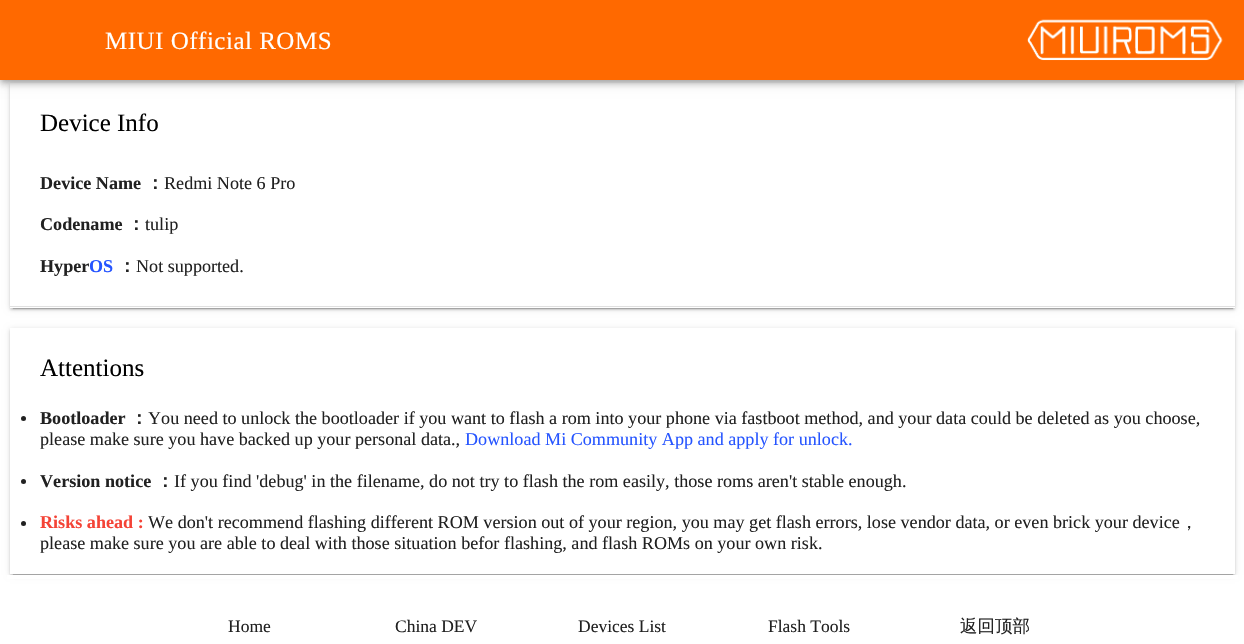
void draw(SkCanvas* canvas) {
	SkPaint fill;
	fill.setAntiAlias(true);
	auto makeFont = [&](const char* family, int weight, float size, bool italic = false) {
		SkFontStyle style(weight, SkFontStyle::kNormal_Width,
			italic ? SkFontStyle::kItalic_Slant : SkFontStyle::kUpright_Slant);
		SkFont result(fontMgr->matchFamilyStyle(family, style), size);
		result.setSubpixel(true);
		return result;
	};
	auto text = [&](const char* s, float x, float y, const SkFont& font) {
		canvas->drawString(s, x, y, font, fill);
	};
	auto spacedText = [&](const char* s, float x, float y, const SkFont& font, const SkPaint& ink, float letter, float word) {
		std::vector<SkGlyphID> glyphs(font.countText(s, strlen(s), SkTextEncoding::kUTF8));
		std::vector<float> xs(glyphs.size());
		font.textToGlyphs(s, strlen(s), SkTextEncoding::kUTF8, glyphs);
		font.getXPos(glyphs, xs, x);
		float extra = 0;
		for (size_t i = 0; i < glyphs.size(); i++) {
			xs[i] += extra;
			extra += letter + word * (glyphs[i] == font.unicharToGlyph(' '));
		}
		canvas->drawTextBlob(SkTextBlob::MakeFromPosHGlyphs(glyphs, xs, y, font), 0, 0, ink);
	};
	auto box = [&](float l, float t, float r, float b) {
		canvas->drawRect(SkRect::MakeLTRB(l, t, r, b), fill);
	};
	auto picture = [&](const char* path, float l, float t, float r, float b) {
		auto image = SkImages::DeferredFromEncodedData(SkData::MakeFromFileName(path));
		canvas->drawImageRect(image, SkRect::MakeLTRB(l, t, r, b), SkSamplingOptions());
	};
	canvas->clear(0xFFFFFFFF);
	fill.setColor(0x1F000000);
	fill.setMaskFilter(SkMaskFilter::MakeBlur(kNormal_SkBlurStyle, 3));
	canvas->drawRect(SkRect::MakeLTRB(10, 84, 1235, 309), fill);
	fill.setMaskFilter(nullptr);
	fill.setColor(0x24000000);
	fill.setMaskFilter(SkMaskFilter::MakeBlur(kNormal_SkBlurStyle, 1));
	canvas->drawRect(SkRect::MakeLTRB(10, 85, 1235, 310), fill);
	fill.setMaskFilter(nullptr);
	fill.setColor(0x33000000);
	fill.setMaskFilter(SkMaskFilter::MakeBlur(kNormal_SkBlurStyle, 0.5f));
	canvas->drawRect(SkRect::MakeLTRB(13, 89, 1233, 309), fill);
	fill.setMaskFilter(nullptr);
	fill.setColor(0xFFFFFFFF);
	box(10, 83, 1235, 308);
	fill.setColor(0x1F000000);
	fill.setMaskFilter(SkMaskFilter::MakeBlur(kNormal_SkBlurStyle, 6));
	canvas->drawRect(SkRect::MakeLTRB(0, 1, 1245, 81), fill);
	fill.setMaskFilter(nullptr);
	fill.setColor(0x24000000);
	fill.setMaskFilter(SkMaskFilter::MakeBlur(kNormal_SkBlurStyle, 3));
	canvas->drawRect(SkRect::MakeLTRB(0, 5, 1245, 85), fill);
	fill.setMaskFilter(nullptr);
	fill.setColor(0x33000000);
	fill.setMaskFilter(SkMaskFilter::MakeBlur(kNormal_SkBlurStyle, 2.5f));
	canvas->drawRect(SkRect::MakeLTRB(1, 4, 1244, 81), fill);
	fill.setMaskFilter(nullptr);
	fill.setColor(0xFFFF6900);
	box(0, 0, 1244, 80);
	picture("image0.png", 1027, 19, 1223, 61);
	fill.setColor(0xFFE0E0E0);
	box(10, 306, 1235, 307);
	fill.setColor(0x1F000000);
	fill.setMaskFilter(SkMaskFilter::MakeBlur(kNormal_SkBlurStyle, 3));
	canvas->drawRect(SkRect::MakeLTRB(10, 329, 1235, 575), fill);
	fill.setMaskFilter(nullptr);
	fill.setColor(0x24000000);
	fill.setMaskFilter(SkMaskFilter::MakeBlur(kNormal_SkBlurStyle, 1));
	canvas->drawRect(SkRect::MakeLTRB(10, 330, 1235, 576), fill);
	fill.setMaskFilter(nullptr);
	fill.setColor(0x33000000);
	fill.setMaskFilter(SkMaskFilter::MakeBlur(kNormal_SkBlurStyle, 0.5f));
	canvas->drawRect(SkRect::MakeLTRB(13, 334, 1233, 575), fill);
	fill.setMaskFilter(nullptr);
	fill.setColor(0xFFFFFFFF);
	box(10, 328, 1235, 574);
	fill.setColor(0xFF212121);
	canvas->drawCircle(23.5f, 418.5f, 2.5f, fill);
	canvas->drawCircle(23.5f, 481.5f, 2.5f, fill);
	canvas->drawCircle(23.5f, 523.5f, 2.5f, fill);
	fill.setColor(0xFFFFFFFF);
	box(7, 575, 1238, 579);
	auto font1 = makeFont("Liberation Serif", 400, 25);
	spacedText("MIUI Official ROMS", 105, 49, font1, fill, 0.5f, 0);
	fill.setColor(0xFF000000);
	text("Device Info", 40, 131, font1);
	auto font2 = makeFont("Liberation Serif", 700, 18.12f);
	fill.setColor(0xFF212121);
	text("Device Name", 40, 189, font2);
	auto font3 = makeFont("WenQuanYi Zen Hei", 700, 18.12f);
	text("：", 146, 189, font3);
	auto font4 = makeFont("Liberation Serif", 400, 18.12f);
	text("Redmi Note 6 Pro", 164, 189, font4);
	text("Codename", 40, 230, font2);
	text("：", 127, 230, font3);
	text("tulip", 145, 230, font4);
	text("Hyper", 40, 272, font2);
	fill.setColor(0xFF2655FF);
	text("OS", 89, 272, font2);
	fill.setColor(0xFF212121);
	text("：", 118, 272, font3);
	text("Not supported.", 136, 272, font4);
	fill.setColor(0xFF000000);
	text("Attentions", 40, 376, font1);
	fill.setColor(0xFF212121);
	text("Bootloader", 40, 424, font2);
	text("：", 130, 424, font3);
	text("You need to unlock the bootloader if you want to flash a rom into your phone via fastboot method, and your data could be deleted as you choose,", 148, 424, font4);
	text("please make sure you have backed up your personal data.,", 40, 445, font4);
	fill.setColor(0xFF2655FF);
	text("Download Mi Community App and apply for unlock.", 465, 445, font4);
	fill.setColor(0xFF212121);
	text("Version notice", 40, 487, font2);
	text("：", 156, 487, font3);
	text("If you find 'debug' in the filename, do not try to flash the rom easily, those roms aren't stable enough.", 174, 487, font4);
	fill.setColor(0xFFF44336);
	text("Risks ahead :", 40, 528, font2);
	fill.setColor(0xFF212121);
	text("We don't recommend flashing different ROM version out of your region, you may get flash errors, lose vendor data, or even brick your device", 148, 528, font4);
	auto font5 = makeFont("WenQuanYi Zen Hei", 500, 18.12f);
	text("，", 1180, 528, font5);
	text("please make sure you are able to deal with those situation befor flashing, and flash ROMs on your own risk.", 40, 549, font4);
	auto font6 = makeFont("Liberation Serif", 400, 17.5f);
	text("Home", 228, 632, font6);
	text("China DEV", 395, 632, font6);
	text("Devices List", 578, 632, font6);
	text("Flash Tools", 768, 632, font6);
	auto font7 = makeFont("WenQuanYi Zen Hei", 500, 17.5f);
	text("返回顶部", 960, 632, font7);
}
